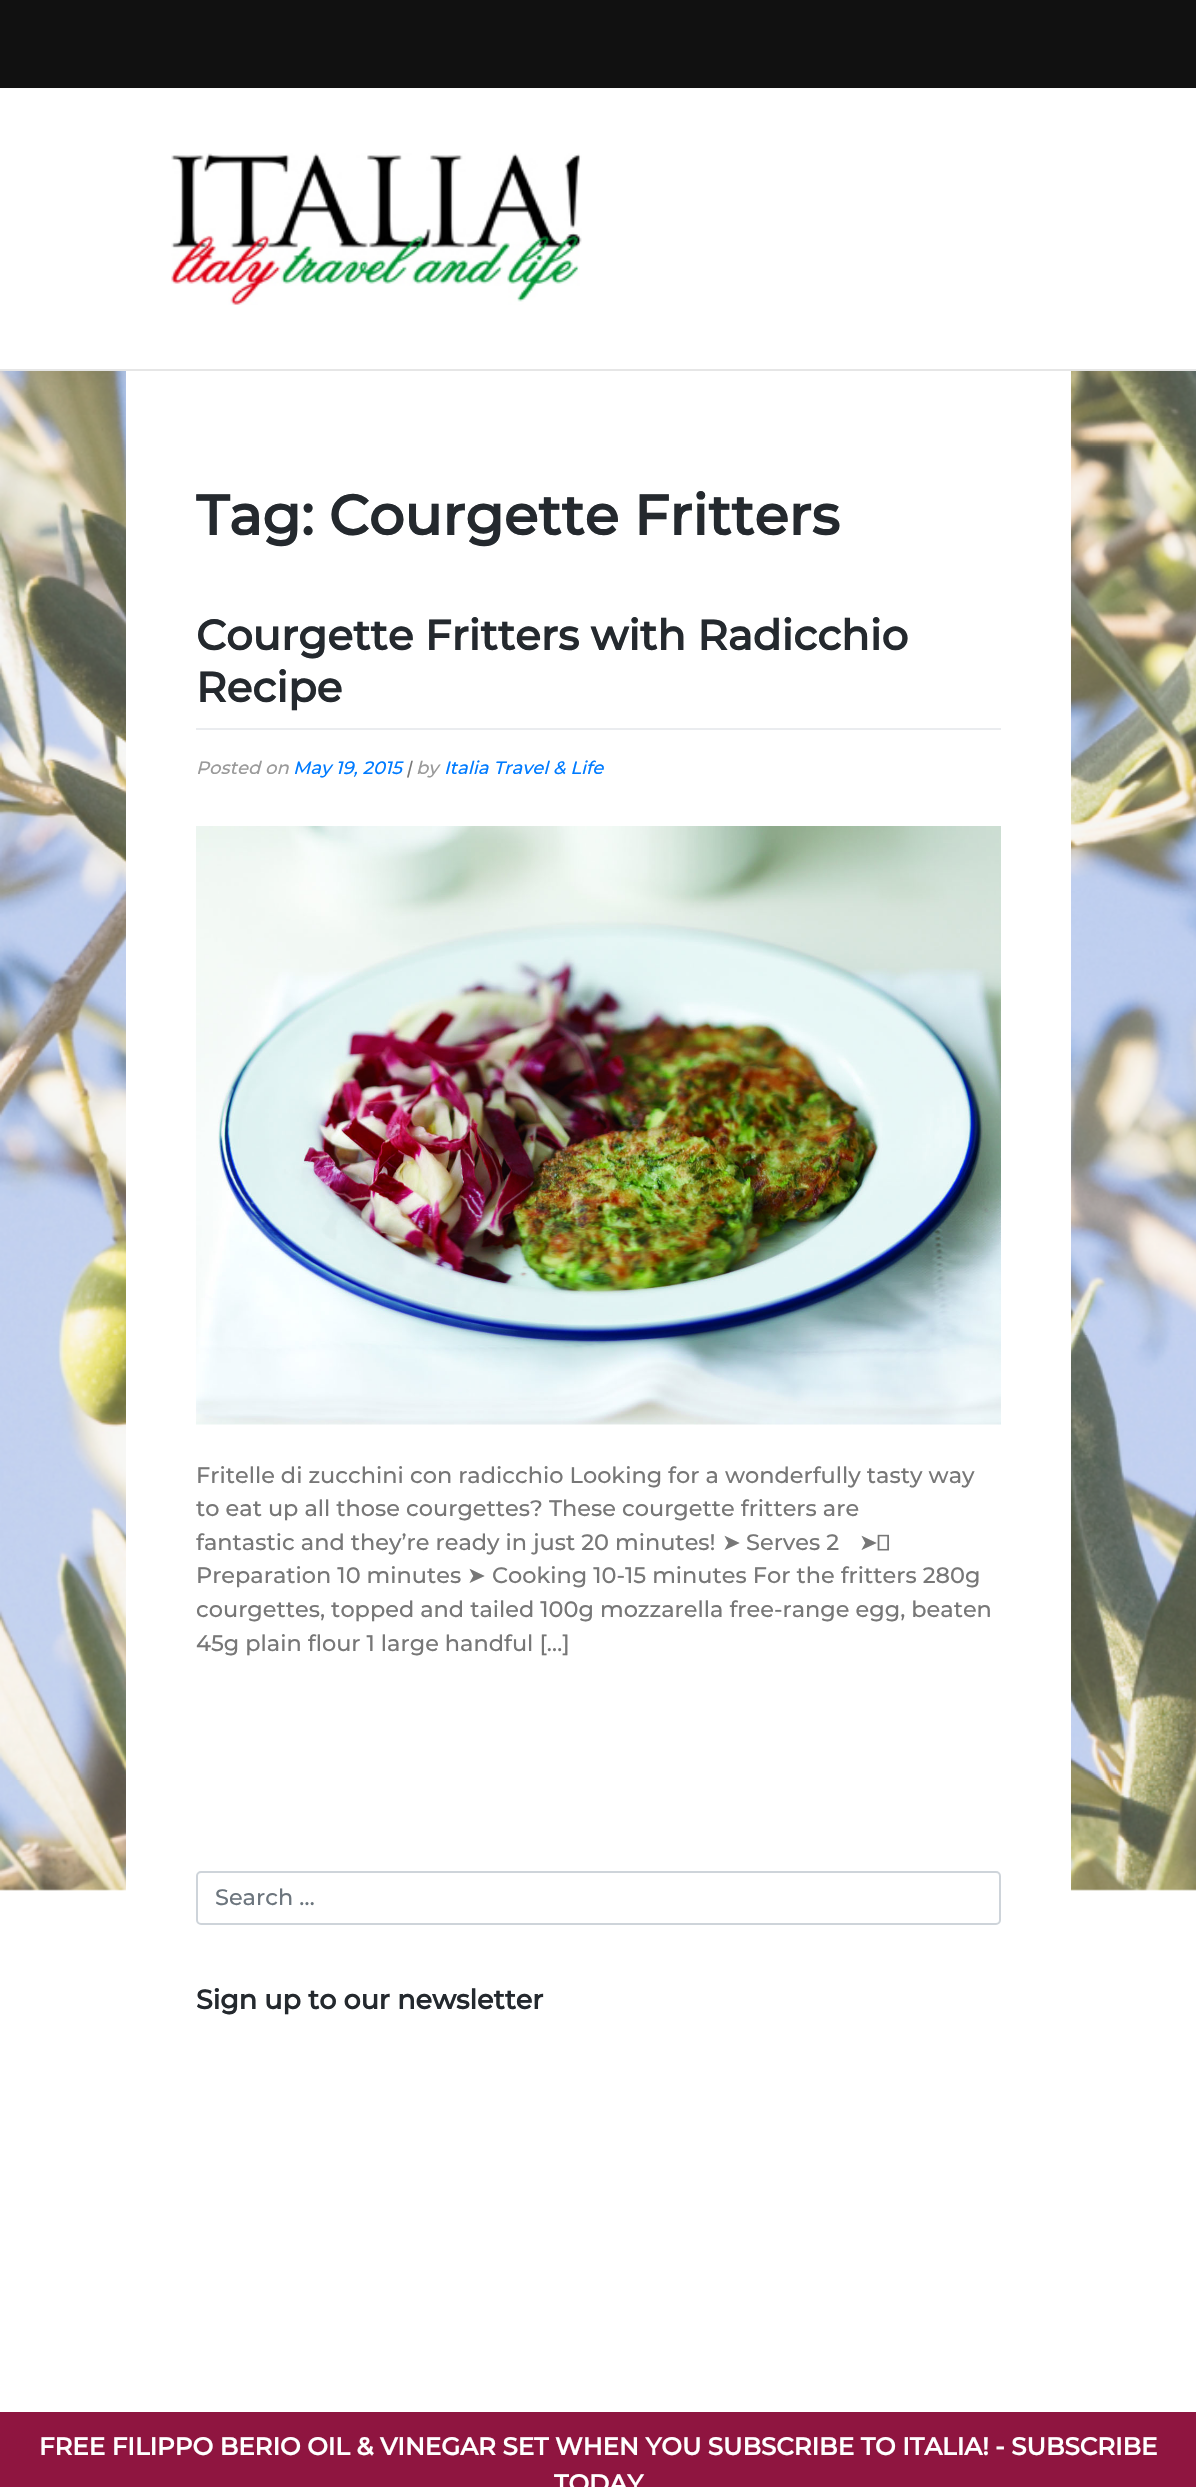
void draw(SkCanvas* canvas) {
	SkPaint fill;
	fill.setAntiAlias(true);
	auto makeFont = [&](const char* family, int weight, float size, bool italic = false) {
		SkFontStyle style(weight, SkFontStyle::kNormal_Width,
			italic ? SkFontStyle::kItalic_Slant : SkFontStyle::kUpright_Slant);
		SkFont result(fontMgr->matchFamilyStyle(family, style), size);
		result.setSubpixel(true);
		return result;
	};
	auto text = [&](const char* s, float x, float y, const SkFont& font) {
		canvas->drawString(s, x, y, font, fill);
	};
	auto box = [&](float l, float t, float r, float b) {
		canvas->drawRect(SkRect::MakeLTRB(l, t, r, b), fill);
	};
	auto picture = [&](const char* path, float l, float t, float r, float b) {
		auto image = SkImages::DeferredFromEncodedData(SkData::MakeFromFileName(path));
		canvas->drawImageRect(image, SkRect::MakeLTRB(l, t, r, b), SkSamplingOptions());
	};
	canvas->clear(0xFFFFFFFF);
	picture("image0.png", 0, 371, 1196, 1891);
	fill.setColor(0x0D000000);
	fill.setMaskFilter(SkMaskFilter::MakeBlur(kNormal_SkBlurStyle, 11));
	canvas->drawRect(SkRect::MakeLTRB(0, 98, 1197, 382), fill);
	fill.setMaskFilter(nullptr);
	fill.setColor(0xFF111111);
	box(0, 0, 1196, 88);
	fill.setColor(0xFFFFFFFF);
	box(0, 89, 1196, 369);
	fill.setColor(0xFFE6E6E6);
	box(0, 369, 1196, 371);
	picture("image1.png", 171, 153, 582, 305);
	fill.setColor(0xFFFFFFFF);
	box(126, 371, 1071, 1891);
	fill.setColor(0xFFEAECEF);
	box(196, 728, 1001, 730);
	picture("image2.png", 196, 826, 1001, 1425);
	picture("image3.png", 877, 1534, 889, 1551);
	fill.setStyle(SkPaint::kStroke_Style);
	fill.setStrokeWidth(2);
	fill.setColor(0xFFCED4DA);
	canvas->drawRoundRect(SkRect::MakeLTRB(197, 1872, 1000, 1924), 4, 4, fill);
	fill.setStyle(SkPaint::kFill_Style);
	fill.setColor(0xFF8F1540);
	box(0, 2412, 1196, 2487);
	auto font1 = makeFont("Montserrat", 700, 56);
	fill.setColor(0xFF24292E);
	text("Tag: Courgette Fritters", 196, 535, font1);
	auto font2 = makeFont("Montserrat", 700, 42);
	text("Courgette Fritters with Radicchio", 196, 650, font2);
	text("Recipe", 196, 702, font2);
	auto font3 = makeFont("Montserrat", 100, 18, true);
	fill.setColor(0xFF9A9A9A);
	text("Posted on", 196, 774, font3);
	fill.setColor(0xFF007BFF);
	text("May 19, 2015", 293, 774, font3);
	fill.setColor(0xFF777777);
	text("|", 406, 774, font3);
	fill.setColor(0xFF9A9A9A);
	text("by", 416, 774, font3);
	fill.setColor(0xFF007BFF);
	text("Italia Travel & Life", 444, 774, font3);
	auto font4 = makeFont("Montserrat", 100, 22.4f);
	fill.setColor(0xFF777777);
	text("Fritelle di zucchini con radicchio Looking for a wonderfully tasty way", 196, 1483, font4);
	text("to eat up all those courgettes? These courgette fritters are", 196, 1516, font4);
	text("fantastic and they’re ready in just 20 minutes!", 196, 1550, font4);
	auto font5 = makeFont("DejaVu Sans", 400, 22.4f);
	text("➤", 722, 1550, font5);
	text(" Serves 2", 740, 1550, font4);
	text("➤", 859, 1550, font5);
	text("Preparation 10 minutes", 196, 1583, font4);
	text("➤", 467, 1583, font5);
	text("Cooking 10-15 minutes For the fritters 280g", 492, 1583, font4);
	text("courgettes, topped and tailed 100g mozzarella free-range egg, beaten", 196, 1617, font4);
	text("45g plain flour 1 large handful […]", 196, 1651, font4);
	fill.setColor(0xFF6C757D);
	text("Search …", 215, 1905, font4);
	auto font6 = makeFont("Montserrat", 700, 26.9f);
	fill.setColor(0xFF24292E);
	text("Sign up to our newsletter", 196, 2009, font6);
	auto font7 = makeFont("Montserrat", 700, 24.5f);
	fill.setColor(0xFFFFFFFF);
	text("FREE FILIPPO BERIO OIL & VINEGAR SET WHEN YOU SUBSCRIBE TO ITALIA! - SUBSCRIBE", 39, 2455, font7);
	text("TODAY", 554, 2492, font7);
}
